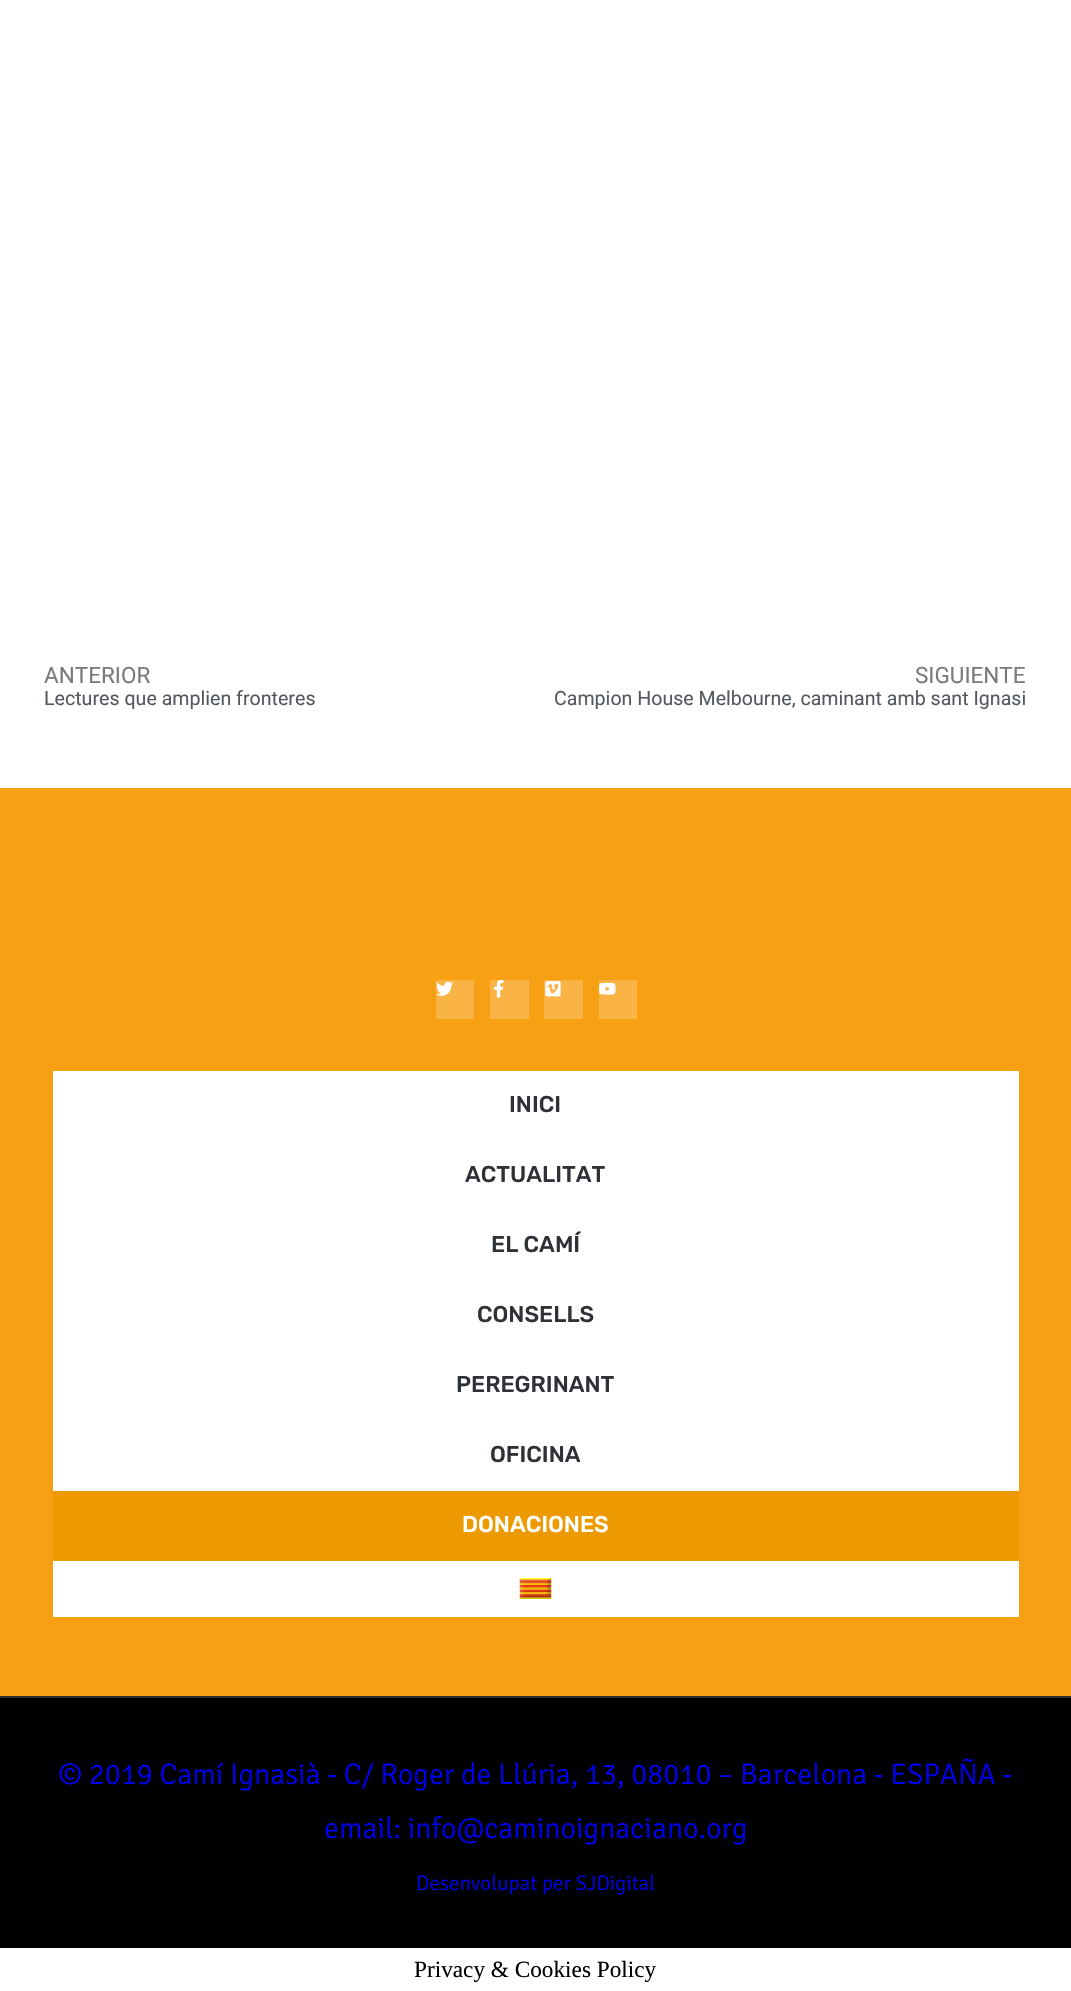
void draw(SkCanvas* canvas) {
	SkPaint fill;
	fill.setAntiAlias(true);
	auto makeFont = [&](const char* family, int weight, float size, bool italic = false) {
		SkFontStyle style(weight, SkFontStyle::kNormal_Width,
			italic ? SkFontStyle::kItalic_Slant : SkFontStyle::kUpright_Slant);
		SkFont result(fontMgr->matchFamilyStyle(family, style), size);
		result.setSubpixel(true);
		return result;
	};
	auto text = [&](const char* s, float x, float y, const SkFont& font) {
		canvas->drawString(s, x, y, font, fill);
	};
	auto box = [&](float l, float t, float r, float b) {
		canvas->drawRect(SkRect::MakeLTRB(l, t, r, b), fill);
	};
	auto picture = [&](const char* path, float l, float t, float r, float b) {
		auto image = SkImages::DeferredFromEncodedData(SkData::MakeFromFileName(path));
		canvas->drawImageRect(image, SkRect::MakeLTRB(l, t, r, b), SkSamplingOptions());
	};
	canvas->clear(0xFFFFFFFF);
	fill.setColor(0xFFF7A013);
	box(0, 788, 1071, 1696);
	fill.setColor(0xFFF9B445);
	box(436, 980, 474, 1019);
	picture("image0.png", 436, 981, 453, 996);
	box(490, 980, 529, 1019);
	picture("image1.png", 494, 980, 504, 998);
	box(544, 980, 583, 1019);
	picture("image2.png", 545, 981, 561, 997);
	box(599, 980, 637, 1019);
	picture("image3.png", 599, 982, 616, 995);
	fill.setColor(0xFFFFFFFF);
	box(53, 1071, 1019, 1617);
	fill.setColor(0xFFED9A00);
	box(53, 1491, 1019, 1561);
	picture("image4.png", 519, 1578, 552, 1599);
	fill.setColor(0xFF000000);
	box(0, 1698, 1071, 1948);
	fill.setColor(0xFF303030);
	box(0, 1696, 1071, 1698);
	auto font1 = makeFont("Roboto", 400, 22.5f);
	fill.setColor(0xFF7A7A7A);
	text("ANTERIOR", 44, 683, font1);
	auto font2 = makeFont("Roboto", 400, 19.6f);
	fill.setColor(0xFF54595F);
	text("Lectures que amplien fronteres", 44, 705, font2);
	fill.setColor(0xFF7A7A7A);
	text("SIGUIENTE", 915, 683, font1);
	fill.setColor(0xFF54595F);
	text("Campion House Melbourne, caminant amb sant Ignasi", 554, 705, font2);
	auto font3 = makeFont("Rubik", 500, 22.75f);
	fill.setColor(0xFF2E3237);
	text("INICI", 509, 1112, font3);
	text("ACTUALITAT", 465, 1182, font3);
	text("EL CAMÍ", 491, 1252, font3);
	text("CONSELLS", 477, 1322, font3);
	text("PEREGRINANT", 456, 1392, font3);
	text("OFICINA", 490, 1462, font3);
	fill.setColor(0xFFFFFFFF);
	text("DONACIONES", 462, 1532, font3);
	auto font4 = makeFont("Signika", 300, 29.75f);
	fill.setColor(0xFF0000EE);
	text("© 2019 Camí Ignasià - C/ Roger de Llúria, 13, 08010 – Barcelona - ESPAÑA -", 58, 1784, font4);
	text("email: info@caminoignaciano.org", 324, 1838, font4);
	auto font5 = makeFont("Signika", 300, 21);
	text("Desenvolupat per SJDigital", 416, 1890, font5);
	auto font6 = makeFont("Liberation Serif", 400, 23.25f);
	fill.setColor(0xFF000000);
	text("Privacy & Cookies Policy", 414, 1977, font6);
}
